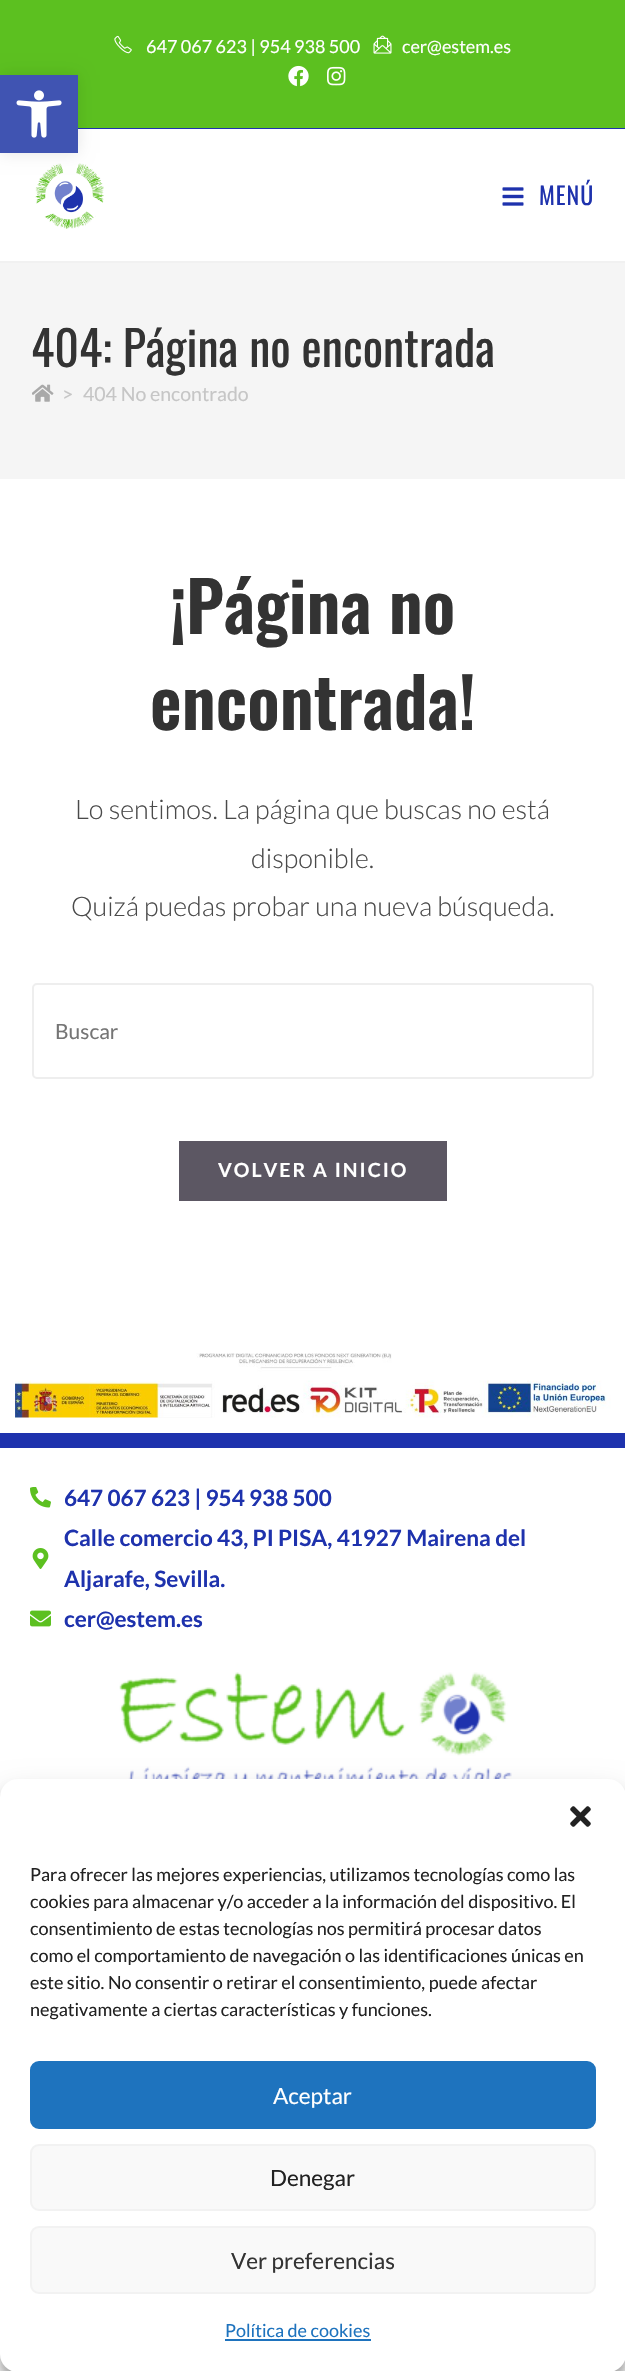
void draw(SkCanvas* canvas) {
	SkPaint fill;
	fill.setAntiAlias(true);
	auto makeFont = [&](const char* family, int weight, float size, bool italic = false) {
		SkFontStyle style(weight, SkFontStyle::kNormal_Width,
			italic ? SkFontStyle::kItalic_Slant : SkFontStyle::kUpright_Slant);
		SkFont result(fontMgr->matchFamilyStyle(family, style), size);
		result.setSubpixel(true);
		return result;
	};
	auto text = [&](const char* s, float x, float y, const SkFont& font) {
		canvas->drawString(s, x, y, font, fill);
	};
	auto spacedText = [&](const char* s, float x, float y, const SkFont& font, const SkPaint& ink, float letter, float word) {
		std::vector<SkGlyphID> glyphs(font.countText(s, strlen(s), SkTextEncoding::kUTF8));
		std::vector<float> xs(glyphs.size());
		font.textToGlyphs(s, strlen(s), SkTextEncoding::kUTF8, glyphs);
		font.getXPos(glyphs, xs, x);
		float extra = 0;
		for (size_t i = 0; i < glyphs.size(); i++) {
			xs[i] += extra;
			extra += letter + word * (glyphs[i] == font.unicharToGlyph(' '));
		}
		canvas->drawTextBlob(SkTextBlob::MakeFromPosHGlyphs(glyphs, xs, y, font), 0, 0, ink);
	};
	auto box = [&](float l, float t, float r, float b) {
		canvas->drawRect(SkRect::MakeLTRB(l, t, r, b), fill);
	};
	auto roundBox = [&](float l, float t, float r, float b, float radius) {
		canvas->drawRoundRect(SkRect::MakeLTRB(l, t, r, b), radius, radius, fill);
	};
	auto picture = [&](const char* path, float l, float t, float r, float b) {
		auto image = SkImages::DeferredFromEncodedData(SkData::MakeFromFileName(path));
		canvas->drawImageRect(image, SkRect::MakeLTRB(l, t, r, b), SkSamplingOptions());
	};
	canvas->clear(0xFFFFFFFF);
	fill.setColor(0xFF5CC020);
	box(0, 0, 625, 128);
	fill.setColor(0xFF1E32AD);
	box(78, 128, 625, 129);
	picture("image0.png", 114, 35, 132, 54);
	picture("image1.png", 373, 35, 392, 54);
	picture("image2.png", 288, 65, 309, 87);
	picture("image3.png", 327, 66, 346, 86);
	fill.setColor(0xFFF1F1F1);
	box(0, 261, 625, 263);
	picture("image4.png", 35, 163, 104, 229);
	picture("image5.png", 502, 187, 524, 206);
	fill.setColor(0xFFF5F5F5);
	box(0, 263, 625, 479);
	picture("image6.png", 32, 384, 54, 402);
	fill.setStyle(SkPaint::kStroke_Style);
	fill.setStrokeWidth(2);
	fill.setColor(0xFFEEEEEE);
	canvas->drawRoundRect(SkRect::MakeLTRB(33, 984, 593, 1078), 4, 4, fill);
	fill.setStyle(SkPaint::kFill_Style);
	fill.setColor(0xFF5C5763);
	box(179, 1141, 447, 1201);
	picture("image7.png", 15, 1353, 611, 1418);
	fill.setColor(0xFF1E32AD);
	box(0, 1433, 625, 1448);
	picture("image8.png", 30, 1487, 51, 1508);
	picture("image9.png", 32, 1548, 49, 1569);
	picture("image10.png", 30, 1610, 51, 1627);
	picture("image11.png", 119, 1672, 514, 1779);
	fill.setColor(0x1A000000);
	fill.setMaskFilter(SkMaskFilter::MakeBlur(kNormal_SkBlurStyle, 7.5f));
	canvas->drawRect(SkRect::MakeLTRB(0, 75, 78, 153), fill);
	fill.setMaskFilter(nullptr);
	fill.setColor(0xFF4054B2);
	box(0, 75, 78, 153);
	picture("image12.png", 16, 90, 62, 138);
	fill.setColor(0x3B000000);
	fill.setMaskFilter(SkMaskFilter::MakeBlur(kNormal_SkBlurStyle, 4.5f));
	canvas->drawRoundRect(SkRect::MakeLTRB(0, 1788, 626, 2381), 18, 18, fill);
	fill.setMaskFilter(nullptr);
	fill.setColor(0x30000000);
	fill.setMaskFilter(SkMaskFilter::MakeBlur(kNormal_SkBlurStyle, 15));
	canvas->drawRoundRect(SkRect::MakeLTRB(0, 1794, 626, 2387), 18, 18, fill);
	fill.setMaskFilter(nullptr);
	fill.setColor(0xFFFFFFFF);
	roundBox(0, 1779, 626, 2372, 18);
	picture("image13.png", 570, 1806, 591, 1827);
	fill.setColor(0xFF1E73BE);
	canvas->drawRoundRect(SkRect::MakeLTRB(31, 2062, 595, 2128), 8, 8, fill);
	fill.setStyle(SkPaint::kStroke_Style);
	canvas->drawRoundRect(SkRect::MakeLTRB(31, 2062, 595, 2128), 8, 8, fill);
	fill.setStyle(SkPaint::kFill_Style);
	fill.setColor(0xFFF9F9F9);
	canvas->drawRoundRect(SkRect::MakeLTRB(31, 2145, 595, 2210), 8, 8, fill);
	fill.setStyle(SkPaint::kStroke_Style);
	fill.setColor(0xFFF2F2F2);
	canvas->drawRoundRect(SkRect::MakeLTRB(31, 2145, 595, 2210), 8, 8, fill);
	fill.setStyle(SkPaint::kFill_Style);
	fill.setColor(0xFFF9F9F9);
	canvas->drawRoundRect(SkRect::MakeLTRB(31, 2227, 595, 2293), 8, 8, fill);
	fill.setStyle(SkPaint::kStroke_Style);
	fill.setColor(0xFFF2F2F2);
	canvas->drawRoundRect(SkRect::MakeLTRB(31, 2227, 595, 2293), 8, 8, fill);
	fill.setStyle(SkPaint::kFill_Style);
	fill.setColor(0xFF1E73BE);
	box(225, 2339, 371, 2341);
	auto font1 = makeFont("Lato", 400, 18);
	fill.setColor(0xFFFFFFFF);
	text("647 067 623 | 954 938 500", 146, 53, font1);
	text("cer@estem.es", 402, 53, font1);
	auto font2 = makeFont("Oswald", 400, 24);
	fill.setColor(0xFF1E32AD);
	spacedText("MENÚ", 539, 205, font2, fill, 1, 0);
	auto font3 = makeFont("Oswald", 400, 48);
	fill.setColor(0xFF333333);
	text("404: Página no encontrada", 31, 367, font3);
	auto font4 = makeFont("Lato", 400, 19.5f);
	fill.setColor(0xFFC6C6C6);
	text(">", 62, 401, font4);
	text("404 No encontrado", 83, 401, font4);
	auto font5 = makeFont("Oswald", 600, 69);
	fill.setColor(0xFF333333);
	text("¡Página no", 170, 634, font5);
	text("encontrada!", 150, 730, font5);
	auto font6 = makeFont("Lato", 300, 27);
	fill.setColor(0xFF4A4A4A);
	text("Lo sentimos. La página que buscas no está", 75, 819, font6);
	text("disponible.", 251, 868, font6);
	text("Quizá puedas probar una nueva búsqueda.", 71, 916, font6);
	auto font7 = makeFont("Lato", 400, 21);
	fill.setColor(0xFF757575);
	text("Buscar", 55, 1039, font7);
	auto font8 = makeFont("Lato", 700, 19.5f);
	fill.setColor(0xFFFFFFFF);
	spacedText("VOLVER A INICIO", 218, 1177, font8, fill, 2, 0);
	auto font9 = makeFont("Lato", 700, 22.5f);
	fill.setColor(0xFF1E32AD);
	text("647 067 623 | 954 938 500", 64, 1506, font9);
	text("Calle comercio 43, PI PISA, 41927 Mairena del", 64, 1546, font9);
	text("Aljarafe, Sevilla.", 64, 1587, font9);
	text("cer@estem.es", 64, 1627, font9);
	fill.setColor(0xFF222222);
	text("Para ofrecer las mejores experiencias, utilizamos tecnologías como las", 30, 1881, font1);
	text("cookies para almacenar y/o acceder a la información del dispositivo. El", 30, 1908, font1);
	text("consentimiento de estas tecnologías nos permitirá procesar datos", 30, 1935, font1);
	text("como el comportamiento de navegación o las identificaciones únicas en", 30, 1962, font1);
	text("este sitio. No consentir o retirar el consentimiento, puede afectar", 30, 1989, font1);
	text("negativamente a ciertas características y funciones.", 30, 2016, font1);
	auto font10 = makeFont("Lato", 400, 22.5f);
	fill.setColor(0xFFFFFFFF);
	text("Aceptar", 273, 2104, font10);
	fill.setColor(0xFF222222);
	text("Denegar", 270, 2186, font10);
	fill.setColor(0xFF333333);
	text("Ver preferencias", 231, 2269, font10);
	fill.setColor(0xFF1E73BE);
	text("Política de cookies", 225, 2337, font1);
}
